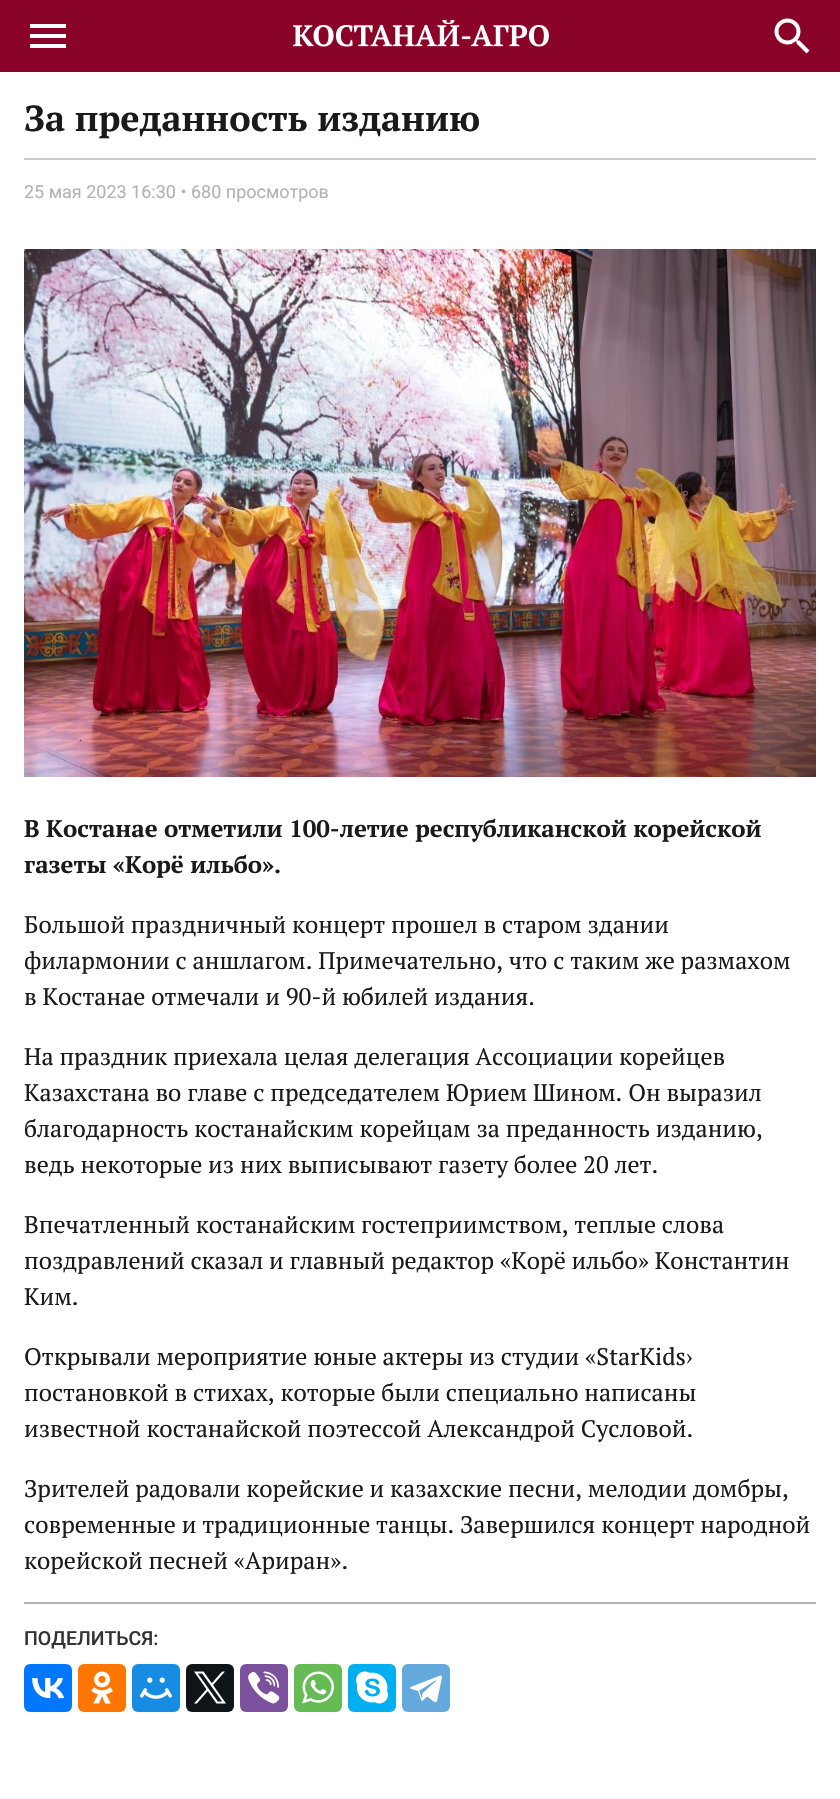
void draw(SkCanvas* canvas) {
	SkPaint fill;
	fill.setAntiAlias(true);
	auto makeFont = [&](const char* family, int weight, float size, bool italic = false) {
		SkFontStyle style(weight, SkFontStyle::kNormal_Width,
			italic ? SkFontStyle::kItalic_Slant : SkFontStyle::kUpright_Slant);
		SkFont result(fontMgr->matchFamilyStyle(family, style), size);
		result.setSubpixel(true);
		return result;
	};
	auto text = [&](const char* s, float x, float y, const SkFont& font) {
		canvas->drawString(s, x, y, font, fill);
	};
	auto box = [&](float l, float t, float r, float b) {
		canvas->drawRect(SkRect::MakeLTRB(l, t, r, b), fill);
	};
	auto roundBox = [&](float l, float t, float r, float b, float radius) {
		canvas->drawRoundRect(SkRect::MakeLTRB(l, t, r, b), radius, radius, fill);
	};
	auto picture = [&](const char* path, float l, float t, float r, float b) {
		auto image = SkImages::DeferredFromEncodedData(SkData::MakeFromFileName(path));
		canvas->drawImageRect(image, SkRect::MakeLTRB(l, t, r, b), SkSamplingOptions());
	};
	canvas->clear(0xFFFFFFFF);
	fill.setColor(0xFF8A042A);
	box(0, 0, 840, 72);
	picture("image0.png", 30, 24, 66, 48);
	picture("image1.png", 293, 20, 549, 47);
	picture("image2.png", 774, 18, 810, 54);
	fill.setColor(0xFFCCCCCC);
	box(24, 158, 816, 160);
	picture("image3.png", 24, 249, 816, 777);
	fill.setColor(0xFFB3B3B3);
	box(24, 1602, 816, 1604);
	fill.setColor(0xFF0077FF);
	roundBox(24, 1664, 72, 1712, 6);
	picture("image4.png", 32, 1678, 64, 1699);
	fill.setColor(0xFFFF7700);
	roundBox(78, 1664, 126, 1712, 6);
	picture("image5.png", 91, 1671, 113, 1704);
	fill.setColor(0xFF168DE2);
	roundBox(132, 1664, 180, 1712, 6);
	picture("image6.png", 140, 1677, 172, 1699);
	fill.setColor(0xFF0F1419);
	roundBox(186, 1664, 234, 1712, 6);
	picture("image7.png", 194, 1671, 226, 1704);
	fill.setColor(0xFF7B519D);
	roundBox(240, 1664, 288, 1712, 6);
	picture("image8.png", 248, 1671, 280, 1704);
	fill.setColor(0xFF65BC54);
	roundBox(294, 1664, 342, 1712, 6);
	picture("image9.png", 302, 1671, 334, 1704);
	fill.setColor(0xFF00AFF0);
	roundBox(348, 1664, 396, 1712, 6);
	picture("image10.png", 356, 1671, 388, 1704);
	fill.setColor(0xFF64A9DC);
	roundBox(402, 1664, 450, 1712, 6);
	picture("image11.png", 410, 1675, 442, 1703);
	auto font1 = makeFont("PT Serif", 700, 36);
	fill.setColor(0xFF1A1A1A);
	text("За преданность изданию", 24, 131, font1);
	auto font2 = makeFont("Roboto", 400, 18);
	fill.setColor(0xFFB3B3B3);
	text("25 мая 2023 16:30 • 680 просмотров", 24, 198, font2);
	auto font3 = makeFont("PT Serif", 700, 24);
	fill.setColor(0xFF1A1A1A);
	text("В Костанае отметили 100-летие республиканской корейской", 24, 837, font3);
	text("газеты «Корё ильбо».", 24, 873, font3);
	auto font4 = makeFont("PT Serif", 400, 24);
	text("Большой праздничный концерт прошел в старом здании", 24, 933, font4);
	text("филармонии с аншлагом. Примечательно, что с таким же размахом", 24, 969, font4);
	text("в Костанае отмечали и 90-й юбилей издания.", 24, 1005, font4);
	text("На праздник приехала целая делегация Ассоциации корейцев", 24, 1065, font4);
	text("Казахстана во главе с председателем Юрием Шином. Он выразил", 24, 1101, font4);
	text("благодарность костанайским корейцам за преданность изданию,", 24, 1137, font4);
	text("ведь некоторые из них выписывают газету более 20 лет.", 24, 1173, font4);
	text("Впечатленный костанайским гостеприимством, теплые слова", 24, 1233, font4);
	text("поздравлений сказал и главный редактор «Корё ильбо» Константин", 24, 1269, font4);
	text("Ким.", 24, 1305, font4);
	text("Открывали мероприятие юные актеры из студии «StarKids›", 24, 1365, font4);
	text("постановкой в стихах, которые были специально написаны", 24, 1401, font4);
	text("известной костанайской поэтессой Александрой Сусловой.", 24, 1437, font4);
	text("Зрителей радовали корейские и казахские песни, мелодии домбры,", 24, 1497, font4);
	text("современные и традиционные танцы. Завершился концерт народной", 24, 1533, font4);
	text("корейской песней «Ариран».", 24, 1569, font4);
	auto font5 = makeFont("Roboto", 500, 19.5f);
	fill.setColor(0xFF333333);
	text("ПОДЕЛИТЬСЯ:", 24, 1645, font5);
}
